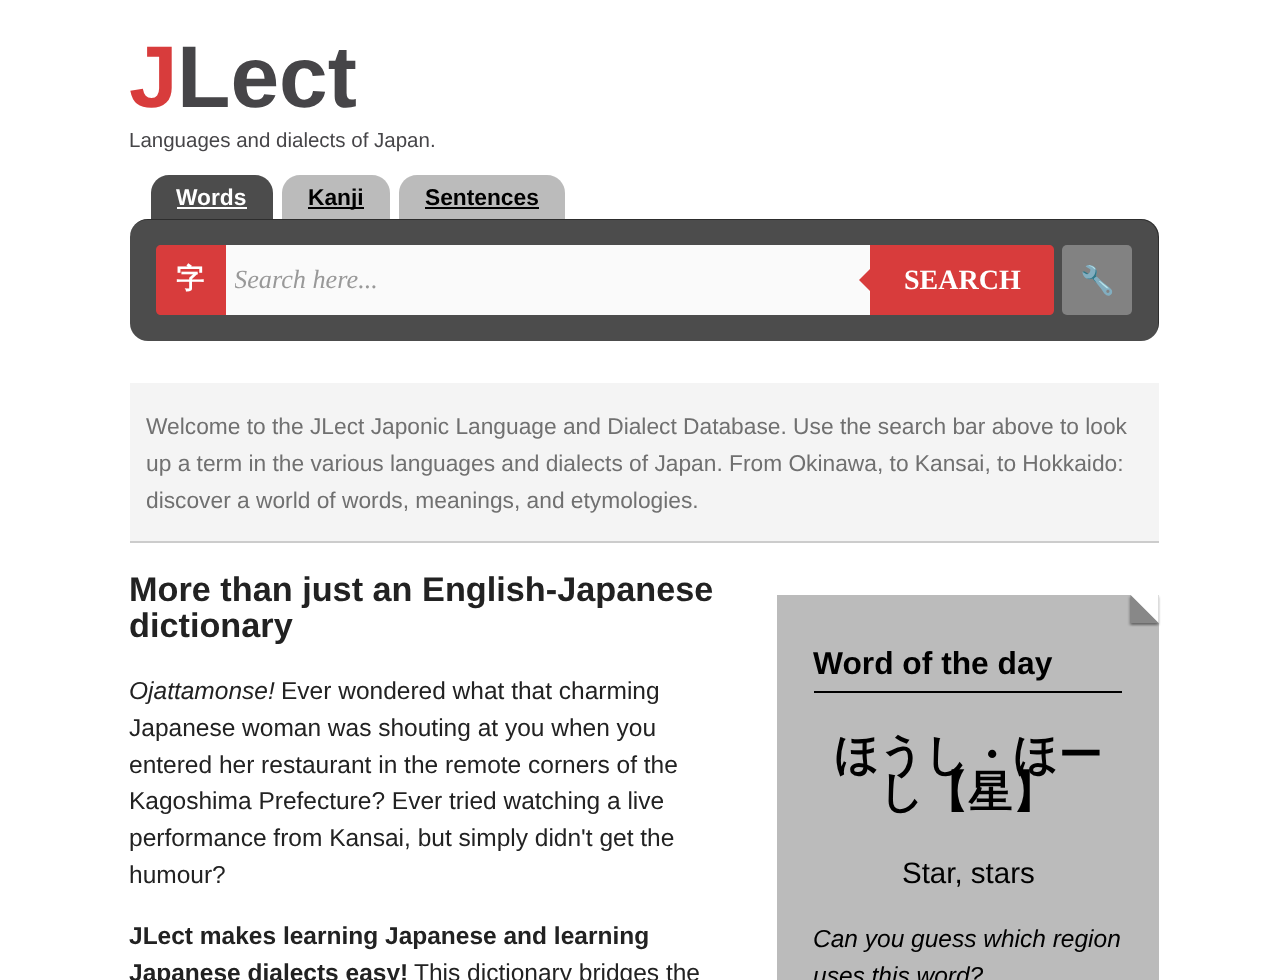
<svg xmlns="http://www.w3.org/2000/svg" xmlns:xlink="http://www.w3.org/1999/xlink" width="1288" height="980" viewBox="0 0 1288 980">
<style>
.cls-1{font:bold 87.5px Liberation Sans;fill:#d83c3c}
.cls-2{font:bold 87.5px Liberation Sans;fill:#464548}
.cls-3{font:20.5px Liberation Sans;fill:#464548}
.cls-4{font:bold 22.75px Liberation Sans;fill:#ffffff}
.cls-5{font:bold 22.75px Liberation Sans;fill:#000000}
.cls-6{font:bold 28px WenQuanYi Zen Hei;fill:#ffffff}
.cls-7{font:italic 26.25px Liberation Serif;fill:#999999}
.cls-8{font:bold 28px Liberation Serif;fill:#ffffff}
.cls-9{font:bold 28px Noto Color Emoji;fill:#ffffff}
.cls-10{font:22.75px Liberation Sans;fill:#707070}
.cls-11{font:bold 34.25px Liberation Sans;fill:#222222}
.cls-12{font:italic 24.5px Liberation Sans;fill:#222222}
.cls-13{font:24.5px Liberation Sans;fill:#222222}
.cls-14{font:bold 24.5px Liberation Sans;fill:#222222}
.cls-15{font:bold 31.75px Liberation Sans;fill:#000000}
.cls-16{font:bold 44px WenQuanYi Zen Hei;fill:#000000}
.cls-17{font:29.5px Liberation Sans;fill:#000000}
.cls-18{font:italic 24.5px Liberation Sans;fill:#000000}
</style>
<defs>
<clipPath id="clip1"><path d="M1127 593H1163V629H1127ZM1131 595H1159V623H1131Z" clip-rule="evenodd"/></clipPath>
<clipPath id="clip2"><rect x="235" y="266" width="626" height="30"/></clipPath>
</defs>
<rect width="100%" height="100%" fill="#ffffff"/>
<path fill="#4c4c4c" d="M169 175H255C265 175 273 183 273 193V219H151V193C151 183 159 175 169 175Z"/>
<rect fill="#ffffff" x="177" y="207" width="70" height="2"/>
<path fill="#bbbbbb" d="M300 175H372C382 175 390 183 390 193V219H282V193C282 183 290 175 300 175Z"/>
<rect fill="#000000" x="308" y="207" width="56" height="2"/>
<path fill="#bbbbbb" d="M417 175H547C557 175 565 183 565 193V219H399V193C399 183 407 175 417 175Z"/>
<rect fill="#000000" x="425" y="207" width="114" height="2"/>
<rect fill="#4c4c4c" x="130" y="219" width="1029" height="122" rx="18"/>
<path fill="#000000" fill-opacity="0.4" d="M147 220H1141C1151 220 1158 228 1158 238V326L1157 330C1158 328 1159 326 1159 323V237C1159 227 1151 219 1141 219H148C138 219 130 227 130 237V238C130 228 137 220 147 220Z"/>
<path fill="#d83c3c" d="M161 245H226V315H161C158 315 156 313 156 310V250C156 247 158 245 161 245Z"/>
<rect fill="#fafafa" x="226" y="245" width="644" height="70"/>
<path fill="#d83c3c" d="M870 245H1049C1052 245 1054 247 1054 250V310C1054 313 1052 315 1049 315H870Z"/>
<path fill="#d83c3c" d="M873 266V294L859 280Z"/>
<rect fill="#828282" x="1062" y="245" width="70" height="70" rx="5"/>
<rect fill="#f4f4f4" x="130" y="383" width="1029" height="158"/>
<rect fill="#cccccc" x="130" y="541" width="1029" height="2"/>
<rect fill="#bbbbbb" x="777" y="595" width="382" height="385"/>
<rect fill="#000000" fill-opacity="0.2" filter="blur(1px)" x="1129" y="597" width="28" height="28"/>
<g clip-path="url(#clip1)">
<rect fill="#000000" fill-opacity="0.3" filter="blur(1px)" x="1131" y="597" width="28" height="28"/>
</g>
<path fill="#ffffff" d="M1158.5 595V623L1130.5 595Z"/>
<path fill="#888888" d="M1158.5 623H1130.5V595Z"/>
<rect fill="#000000" x="814" y="691" width="308" height="2"/>
<text class="cls-1" x="129" y="107">J</text>
<text class="cls-2" x="177" y="107">Lect</text>
<text class="cls-3" x="129" y="147">Languages and dialects of Japan.</text>
<text class="cls-4" x="176" y="205">Words</text>
<text class="cls-5" x="308" y="205">Kanji</text>
<text class="cls-5" x="425" y="205">Sentences</text>
<text class="cls-6" x="176" y="288">字</text>
<g clip-path="url(#clip2)">
<text class="cls-7" x="234" y="288">Search here...</text>
</g>
<text class="cls-8" x="904" y="289">SEARCH</text>
<text class="cls-9" x="1080" y="290">🔧</text>
<text class="cls-10"><tspan x="146" y="434">Welcome to the JLect Japonic Language and Dialect Database. Use the search bar above to look</tspan><tspan x="146" y="471">up a term in the various languages and dialects of Japan. From Okinawa, to Kansai, to Hokkaido:</tspan><tspan x="146" y="508">discover a world of words, meanings, and etymologies.</tspan></text>
<text class="cls-11"><tspan x="129" y="601">More than just an English-Japanese</tspan><tspan x="129" y="637">dictionary</tspan></text>
<text class="cls-12" x="129" y="699">Ojattamonse!</text>
<text class="cls-13" x="281" y="699">Ever wondered what that charming</text>
<text class="cls-13"><tspan x="129" y="736">Japanese woman was shouting at you when you</tspan><tspan x="129" y="773">entered her restaurant in the remote corners of the</tspan><tspan x="129" y="809">Kagoshima Prefecture? Ever tried watching a live</tspan><tspan x="129" y="846">performance from Kansai, but simply didn't get the</tspan><tspan x="129" y="883">humour?</tspan></text>
<text class="cls-14"><tspan x="129" y="944">JLect makes learning Japanese and learning</tspan><tspan x="129" y="981">Japanese dialects easy!</tspan></text>
<text class="cls-13" x="414" y="981">This dictionary bridges the</text>
<text class="cls-15" x="813" y="674">Word of the day</text>
<text class="cls-16" x="834" y="770">ほうし・ほー</text>
<text class="cls-16" x="879" y="807">し【星】</text>
<text class="cls-17" x="902" y="883">Star, stars</text>
<text class="cls-18"><tspan x="813" y="947">Can you guess which region</tspan><tspan x="813" y="984">uses this word?</tspan></text>
</svg>
